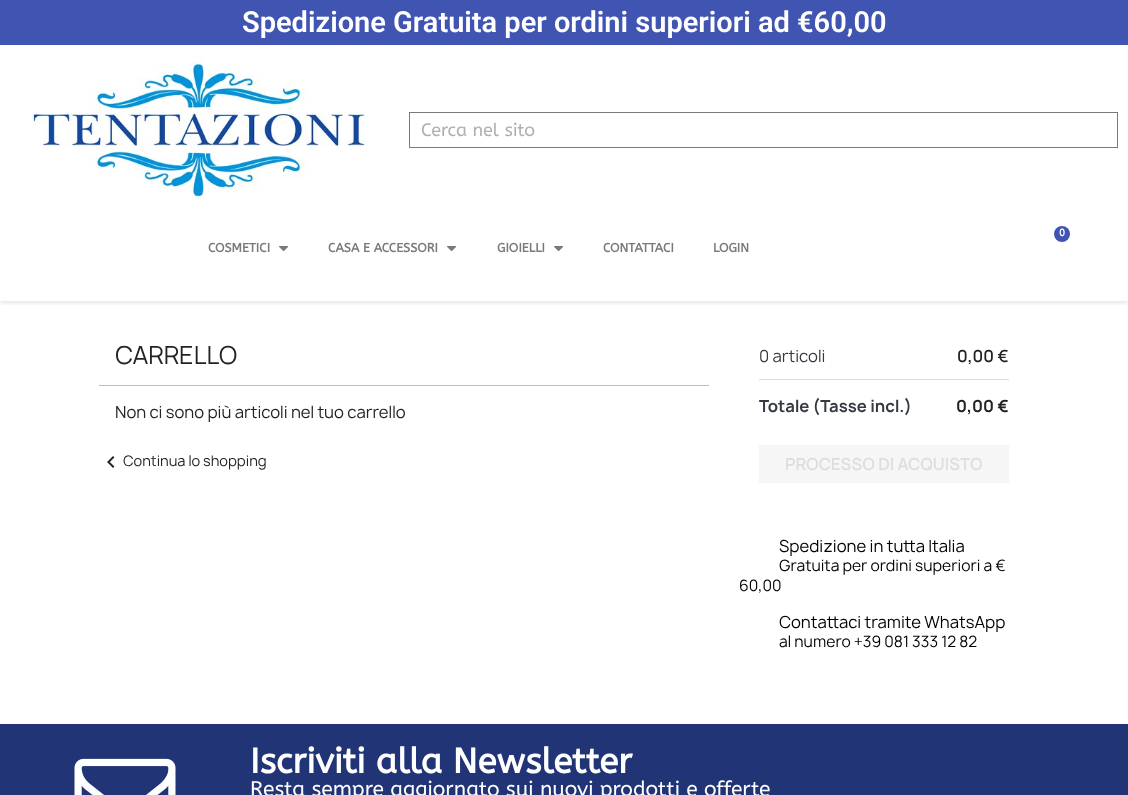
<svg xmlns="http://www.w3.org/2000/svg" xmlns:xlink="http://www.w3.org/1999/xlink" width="1128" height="795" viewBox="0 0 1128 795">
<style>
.cls-1{font:600 29px Roboto;fill:#ffffff}
.cls-2{font:18px ABeeZee;fill:#afafaf}
.cls-3{font:bold 10px ABeeZee;fill:#ffffff}
.cls-4{font:bold 12.5px ABeeZee;fill:#7a7a7a}
.cls-5{font:24px Manrope;fill:#232323}
.cls-6{font:16px Manrope;fill:#232323}
.cls-7{font:14px Manrope;fill:#232323}
.cls-8{font:16px Manrope;fill:#363a42}
.cls-9{font:600 16px Manrope;fill:#232323}
.cls-10{font:bold 16px Manrope;fill:#363a42}
.cls-11{font:bold 16px Manrope;fill:#232323}
.cls-12{font:600 16px Manrope;fill:#dddddd}
.cls-13{font:16px Manrope;fill:#000000}
.cls-14{font:15px Manrope;fill:#000000}
.cls-15{font:bold 35px ABeeZee;fill:#ffffff}
.cls-16{font:21px ABeeZee;fill:#ffffff}
</style>
<defs>
<clipPath id="clip1"><rect x="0" y="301" width="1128" height="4"/></clipPath>
</defs>
<rect width="100%" height="100%" fill="#ffffff"/>
<g clip-path="url(#clip1)">
<rect fill="#000000" fill-opacity="0.11" filter="blur(2.5px)" x="0" y="2" width="1128" height="301"/>
</g>
<rect fill="#4054b2" x="0" y="0" width="1128" height="45"/>
<image xlink:href="image0.png" x="32" y="55" width="336" height="146"/>
<rect fill="none" stroke="#7a7a7a" x="409.5" y="112.5" width="708" height="35"/>
<circle fill="#4054b2" cx="1062" cy="234" r="8"/>
<image xlink:href="image1.png" x="279" y="246" width="10" height="6"/>
<image xlink:href="image1.png" x="447" y="246" width="10" height="6"/>
<image xlink:href="image1.png" x="554" y="246" width="10" height="6"/>
<rect fill="#bfbfbf" x="99" y="385" width="610" height="1"/>
<image xlink:href="image2.png" x="107" y="456" width="8" height="12"/>
<rect fill="#dddddd" x="759" y="379" width="250" height="1"/>
<rect fill="#f6f6f6" x="759" y="445" width="250" height="38"/>
<rect fill="#213476" x="0" y="724" width="1128" height="71"/>
<image xlink:href="image3.png" x="74" y="758" width="102" height="37"/>
<text class="cls-1" x="242" y="32">Spedizione Gratuita per ordini superiori ad €60,00</text>
<text class="cls-2" x="421" y="136">Cerca nel sito</text>
<text class="cls-3" x="1059" y="236">0</text>
<text class="cls-4" x="208" y="252">COSMETICI</text>
<text class="cls-4" x="328" y="252">CASA E ACCESSORI</text>
<text class="cls-4" x="497" y="252">GIOIELLI</text>
<text class="cls-4" x="603" y="252">CONTATTACI</text>
<text class="cls-4" x="713" y="252">LOGIN</text>
<text class="cls-5" x="115" y="364">CARRELLO</text>
<text class="cls-6" x="115" y="418">Non ci sono più articoli nel tuo carrello</text>
<text class="cls-7" x="123" y="466">Continua lo shopping</text>
<text class="cls-8" x="759" y="362">0 articoli</text>
<text class="cls-9" x="957" y="362">0,00 €</text>
<text class="cls-10" x="759" y="412">Totale (Tasse incl.)</text>
<text class="cls-11" x="956" y="412">0,00 €</text>
<text class="cls-12" x="785" y="470">PROCESSO DI ACQUISTO</text>
<text class="cls-13" x="779" y="552">Spedizione in tutta Italia</text>
<text class="cls-14" x="779" y="571">Gratuita per ordini superiori a €</text>
<text class="cls-14" x="739" y="591">60,00</text>
<text class="cls-13" x="779" y="628">Contattaci tramite WhatsApp</text>
<text class="cls-14" x="779" y="647">al numero +39 081 333 12 82</text>
<text class="cls-15" x="250" y="773">Iscriviti alla Newsletter</text>
<text class="cls-16" x="250" y="796">Resta sempre aggiornato sui nuovi prodotti e offerte</text>
</svg>
